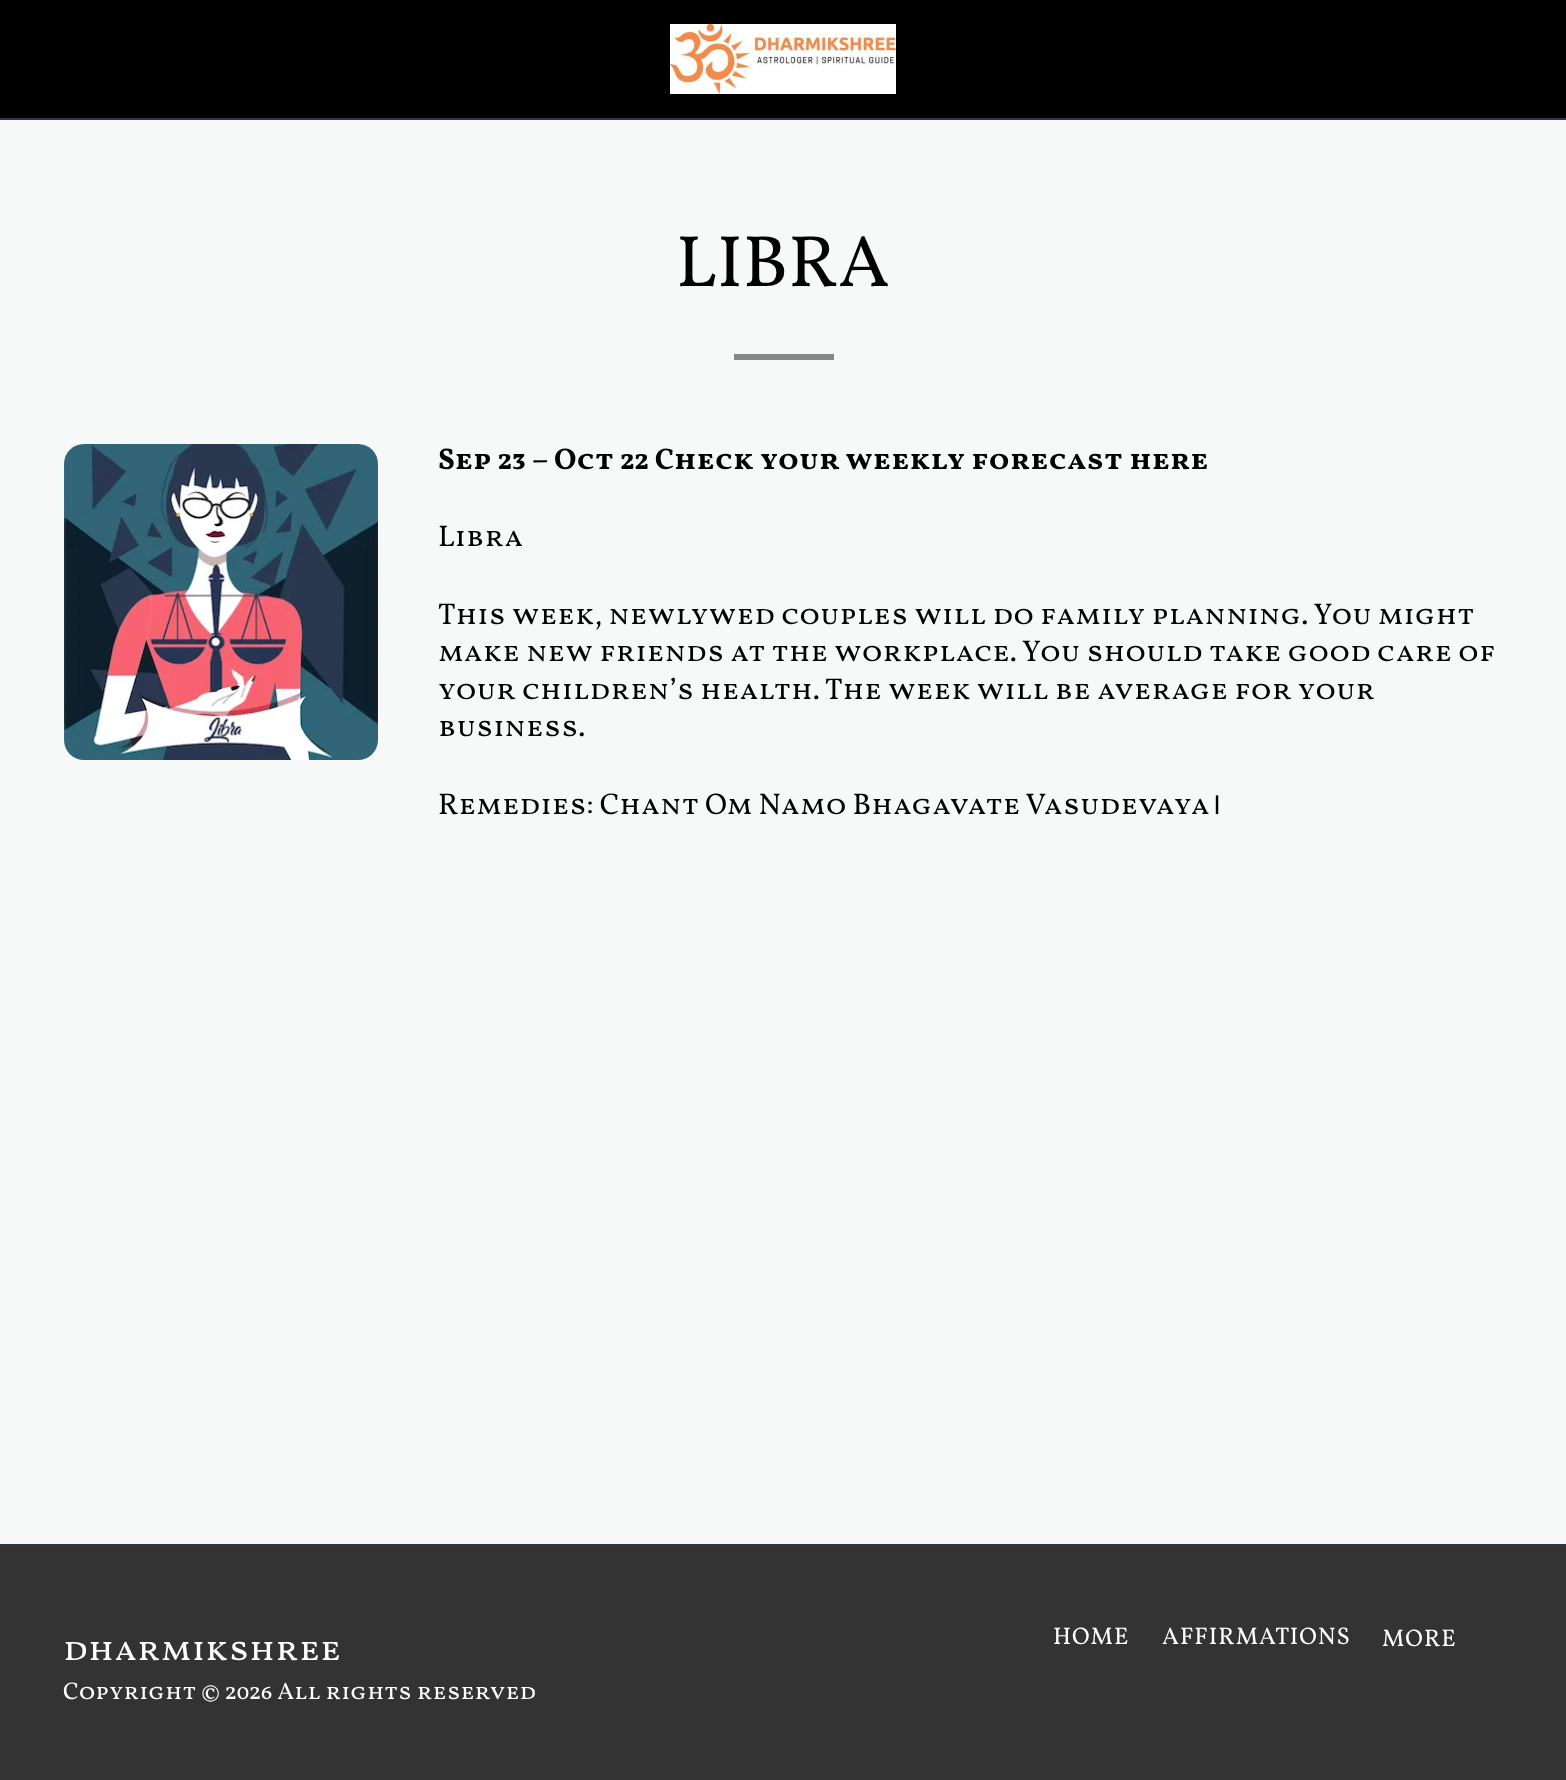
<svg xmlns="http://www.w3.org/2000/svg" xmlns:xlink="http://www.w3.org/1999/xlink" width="1566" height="1780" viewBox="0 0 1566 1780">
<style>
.cls-1{font:73px Vollkorn;fill:#000000}
.cls-2{font:bold 30px Vollkorn SC;fill:#000000}
.cls-3{font:30px Vollkorn SC;fill:#000000}
.cls-4{font:30px Noto Sans;fill:#000000}
.cls-5{font:24px Vollkorn SC;letter-spacing:1px;fill:#ffffff}
.cls-6{font:36px Vollkorn SC;fill:#ffffff}
.cls-7{font:24px Vollkorn SC;fill:#ffffff}
</style>
<rect width="100%" height="100%" fill="#f7f9f8"/>
<rect fill="#000000" x="0" y="0" width="1566" height="118"/>
<rect fill="#303841" x="0" y="118" width="1566" height="2"/>
<image xlink:href="image0.png" x="670" y="24" width="226" height="70"/>
<rect fill="#878789" x="734" y="354" width="100" height="6"/>
<image xlink:href="image1.png" x="64" y="444" width="314" height="316"/>
<rect fill="#333333" x="0" y="1546" width="1566" height="234"/>
<rect fill="#303841" x="0" y="1544" width="1566" height="2"/>
<text class="cls-1" x="676" y="286">LIBRA</text>
<text class="cls-2" x="438" y="469">Sep 23 – Oct 22 Check your weekly forecast here</text>
<text class="cls-3" x="438" y="546">Libra</text>
<text class="cls-3"><tspan x="438" y="624">This week, newlywed couples will do family planning. You might</tspan><tspan x="438" y="661">make new friends at the workplace. You should take good care of</tspan><tspan x="438" y="699">your children’s health. The week will be average for your</tspan><tspan x="438" y="736">business.</tspan></text>
<text class="cls-3" x="438" y="814">Remedies: Chant Om Namo Bhagavate Vasudevaya</text>
<text class="cls-4" x="1210" y="814">।</text>
<text class="cls-5" x="1053" y="1644">HOME</text>
<text class="cls-5" x="1162" y="1644">AFFIRMATIONS</text>
<text class="cls-5" x="1382" y="1646">MORE</text>
<text class="cls-6" x="63" y="1660">dharmikshree</text>
<text class="cls-7" x="63" y="1699">Copyright © 2026 All rights reserved</text>
</svg>
